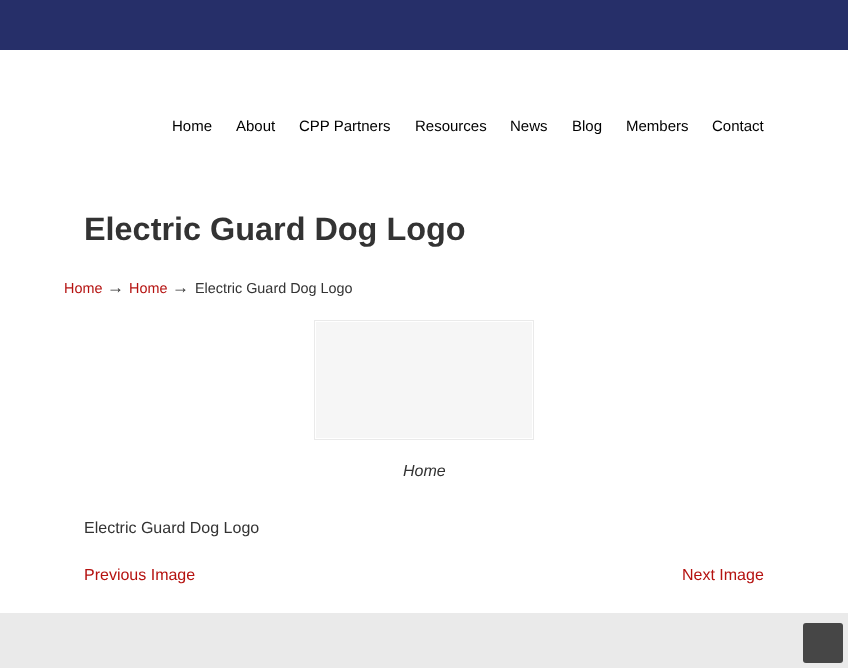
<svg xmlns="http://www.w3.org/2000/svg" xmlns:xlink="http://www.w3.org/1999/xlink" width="848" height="668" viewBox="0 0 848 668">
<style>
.cls-1{font:15px Liberation Sans;fill:#000000}
.cls-2{font:bold 32.4px Liberation Sans;fill:#333333}
.cls-3{font:14.4px Liberation Sans;fill:#b51210}
.cls-4{font:17px Liberation Sans;fill:#333333}
.cls-5{font:14.4px Liberation Sans;fill:#333333}
.cls-6{font:italic 16px Liberation Sans;fill:#333333}
.cls-7{font:16px Liberation Sans;fill:#333333}
.cls-8{font:16px Liberation Sans;fill:#b51210}
</style>
<rect width="100%" height="100%" fill="#ffffff"/>
<rect fill="#262f69" x="0" y="0" width="848" height="50"/>
<rect fill="#f6f6f6" x="316" y="322" width="216" height="116"/>
<rect fill="none" stroke="#eaeaea" x="314.5" y="320.5" width="219" height="119"/>
<rect fill="#eaeaea" x="0" y="613" width="848" height="55"/>
<rect fill="#464646" x="803" y="623" width="40" height="40" rx="3"/>
<text class="cls-1" x="172" y="131">Home</text>
<text class="cls-1" x="236" y="131">About</text>
<text class="cls-1" x="299" y="131">CPP Partners</text>
<text class="cls-1" x="415" y="131">Resources</text>
<text class="cls-1" x="510" y="131">News</text>
<text class="cls-1" x="572" y="131">Blog</text>
<text class="cls-1" x="626" y="131">Members</text>
<text class="cls-1" x="712" y="131">Contact</text>
<text class="cls-2" x="84" y="240">Electric Guard Dog Logo</text>
<text class="cls-3" x="64" y="293">Home</text>
<text class="cls-4" x="107" y="293">→</text>
<text class="cls-3" x="129" y="293">Home</text>
<text class="cls-4" x="172" y="293">→</text>
<text class="cls-5" x="195" y="293">Electric Guard Dog Logo</text>
<text class="cls-6" x="403" y="476">Home</text>
<text class="cls-7" x="84" y="533">Electric Guard Dog Logo</text>
<text class="cls-8" x="84" y="580">Previous Image</text>
<text class="cls-8" x="682" y="580">Next Image</text>
</svg>
